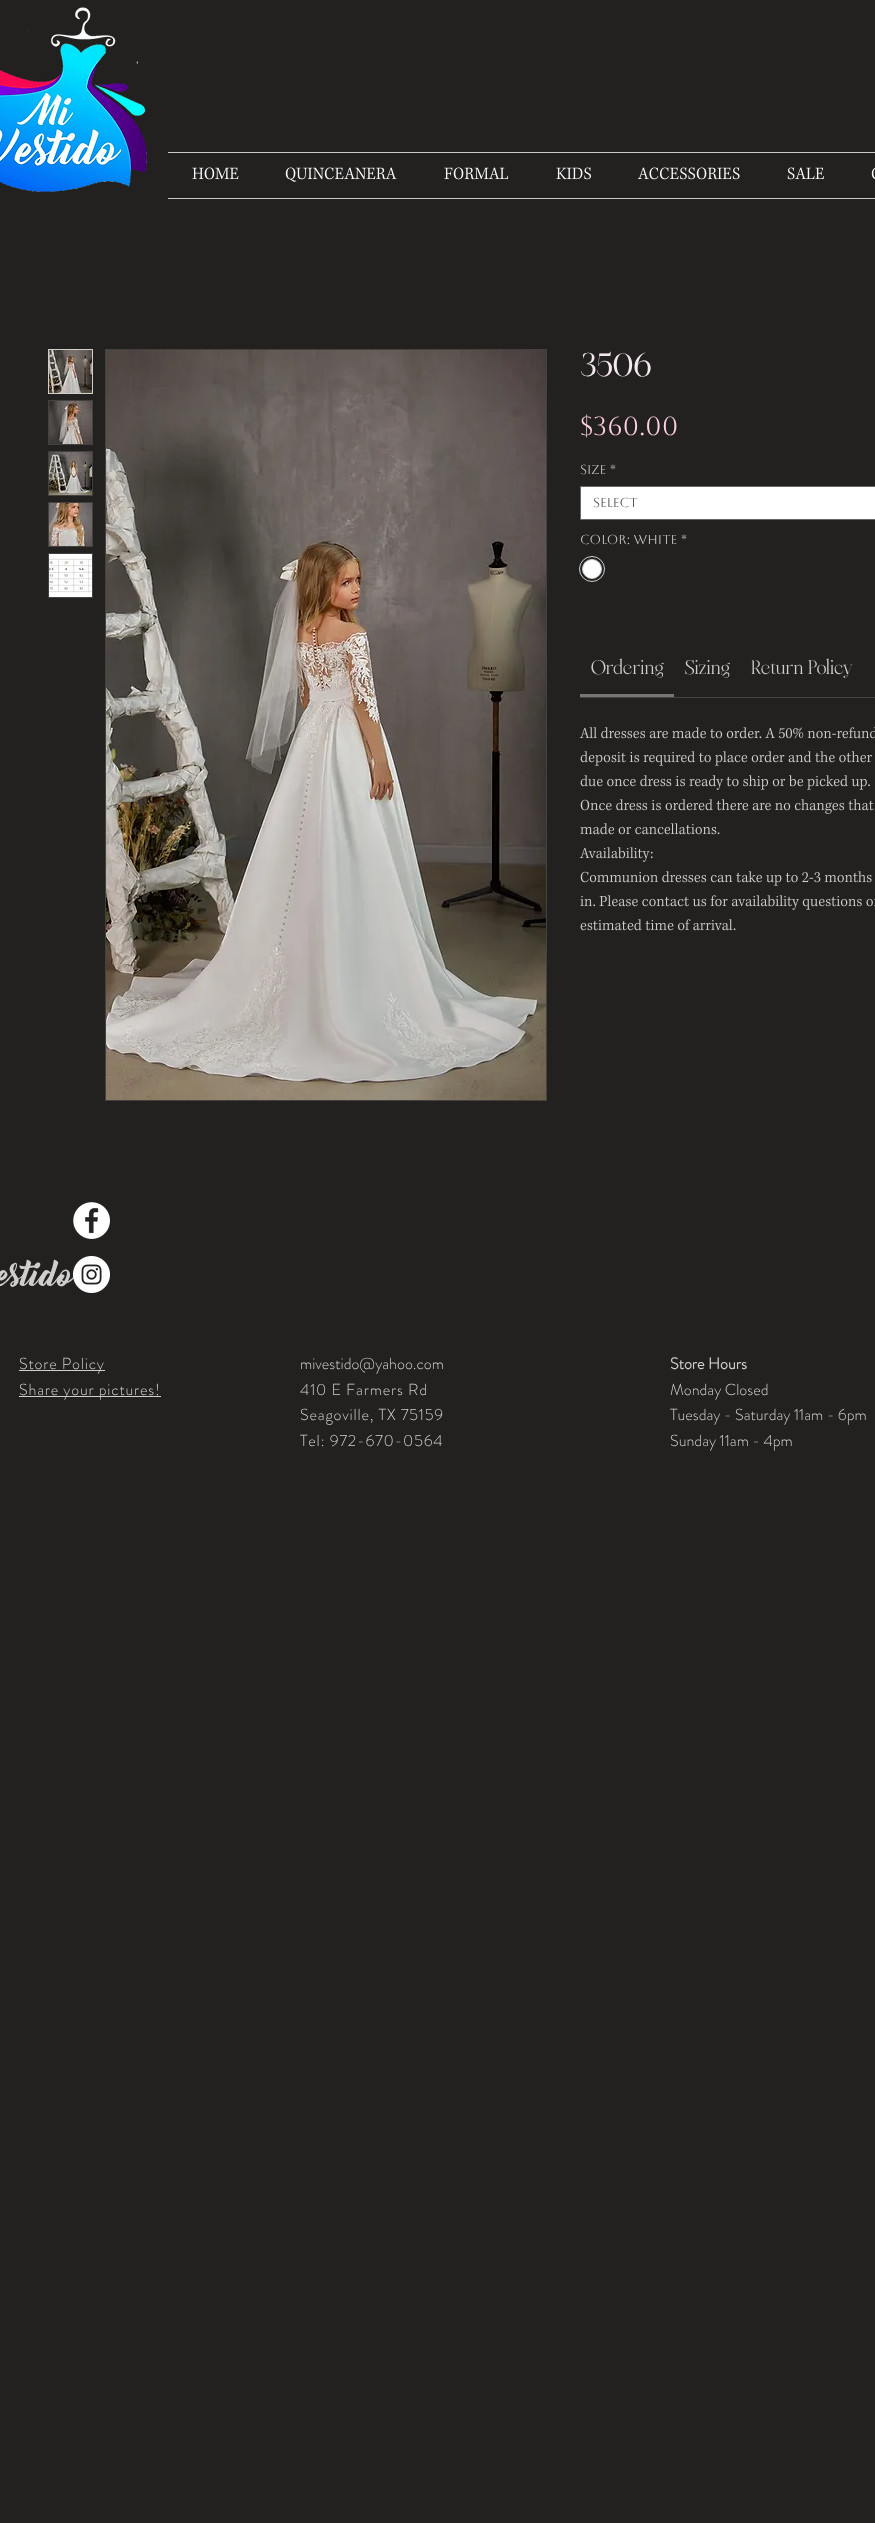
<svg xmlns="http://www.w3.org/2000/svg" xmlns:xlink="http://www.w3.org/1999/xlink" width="875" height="2523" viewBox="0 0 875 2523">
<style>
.cls-1{font:32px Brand;fill:#f5e9f0}
.cls-2{font:26px Aboreto;fill:#ffd1e2}
.cls-3{font:13px Aboreto;fill:#d0cfcd}
.cls-4{font:13px Aboreto;fill:#444444}
.cls-5{font:20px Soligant;fill:#d0cfcd}
.cls-6{font:32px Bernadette;fill:#d0cfcd}
.cls-7{font:300 16px 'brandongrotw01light';letter-spacing:0.8px;fill:#d0cfcd}
.cls-8{font:300 16px 'brandongrotw01light';fill:#d0cfcd}
.cls-9{font:bold 16px 'brandongrotw01light';fill:#d0cfcd}
</style>
<rect width="100%" height="100%" fill="#222120"/>
<image xlink:href="image0.png" x="0" y="7" width="147" height="185"/>
<rect fill="#cacaca" x="168" y="152" width="707" height="1"/>
<rect fill="#cacaca" x="168" y="198" width="707" height="1"/>
<image xlink:href="image1.png" x="192" y="167" width="47" height="13"/>
<image xlink:href="image2.png" x="285" y="167" width="112" height="15"/>
<image xlink:href="image3.png" x="444" y="167" width="65" height="13"/>
<image xlink:href="image4.png" x="556" y="167" width="35" height="13"/>
<image xlink:href="image5.png" x="637" y="167" width="103" height="13"/>
<image xlink:href="image6.png" x="787" y="167" width="37" height="13"/>
<image xlink:href="image7.png" x="871" y="168" width="4" height="11"/>
<rect fill="none" stroke="#d0cfcd" x="48.5" y="349.5" width="44" height="44"/>
<image xlink:href="image8.png" x="49" y="350" width="43" height="43"/>
<rect fill="#43423f" x="48" y="400" width="45" height="45"/>
<image xlink:href="image9.png" x="49" y="401" width="43" height="43"/>
<rect fill="#43423f" x="48" y="451" width="45" height="45"/>
<image xlink:href="image10.png" x="49" y="452" width="43" height="43"/>
<rect fill="#43423f" x="48" y="502" width="45" height="45"/>
<image xlink:href="image11.png" x="49" y="503" width="43" height="43"/>
<rect fill="#43423f" x="48" y="553" width="45" height="45"/>
<image xlink:href="image12.png" x="49" y="554" width="43" height="43"/>
<rect fill="none" stroke="#43423f" x="105.5" y="349.5" width="441" height="751"/>
<image xlink:href="image13.png" x="106" y="350" width="440" height="750"/>
<rect fill="#ffffff" stroke="#666666" x="580.5" y="486.5" width="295" height="33"/>
<circle fill="none" stroke="#d0cfcd" cx="592" cy="569" r="12.5"/>
<circle fill="#ffffff" stroke="#c9c9c9" cx="592" cy="569" r="9.5"/>
<rect fill="#454443" x="580" y="697" width="295" height="1"/>
<rect fill="#777674" x="580" y="694" width="94" height="3"/>
<image xlink:href="image14.png" x="579" y="727" width="296" height="12"/>
<image xlink:href="image15.png" x="580" y="751" width="292" height="15"/>
<image xlink:href="image16.png" x="580" y="775" width="290" height="15"/>
<image xlink:href="image17.png" x="580" y="799" width="294" height="15"/>
<image xlink:href="image18.png" x="580" y="823" width="140" height="12"/>
<image xlink:href="image19.png" x="579" y="847" width="74" height="15"/>
<image xlink:href="image20.png" x="580" y="871" width="292" height="15"/>
<image xlink:href="image21.png" x="580" y="895" width="295" height="15"/>
<image xlink:href="image22.png" x="580" y="919" width="156" height="12"/>
<image xlink:href="image23.png" x="73" y="1202" width="37" height="37"/>
<rect fill="#d0cfcd" x="19" y="1370" width="86" height="1"/>
<rect fill="#d0cfcd" x="19" y="1396" width="142" height="1"/>
<text class="cls-1" x="580" y="376">3506</text>
<text class="cls-2" x="580" y="435">$360.00</text>
<text class="cls-3" x="580" y="474">Size</text>
<text class="cls-3" x="610" y="474">*</text>
<text class="cls-4" x="593" y="507">Select</text>
<text class="cls-3" x="580" y="544">Color: White</text>
<text class="cls-3" x="681" y="544">*</text>
<text class="cls-5" x="591" y="674">Ordering</text>
<text class="cls-5" x="685" y="674">Sizing</text>
<text class="cls-5" x="751" y="674">Return Policy</text>
<text class="cls-6" x="-3" y="1286">estido</text>
<image xlink:href="image24.png" x="73" y="1256" width="37" height="37"/>
<text class="cls-7"><tspan x="19" y="1369">Store Policy</tspan><tspan x="19" y="1395">Share your pictures!</tspan></text>
<text class="cls-8" x="300" y="1369">mivestido@yahoo.com</text>
<text class="cls-7"><tspan x="300" y="1395">410 E Farmers Rd</tspan><tspan x="300" y="1420">Seagoville, TX 75159</tspan><tspan x="300" y="1446">Tel: 972-670-0564</tspan></text>
<text class="cls-9" x="670" y="1369">Store Hours</text>
<text class="cls-8"><tspan x="670" y="1395">Monday Closed</tspan><tspan x="670" y="1420">Tuesday - Saturday 11am - 6pm</tspan><tspan x="670" y="1446">Sunday 11am - 4pm</tspan></text>
</svg>
